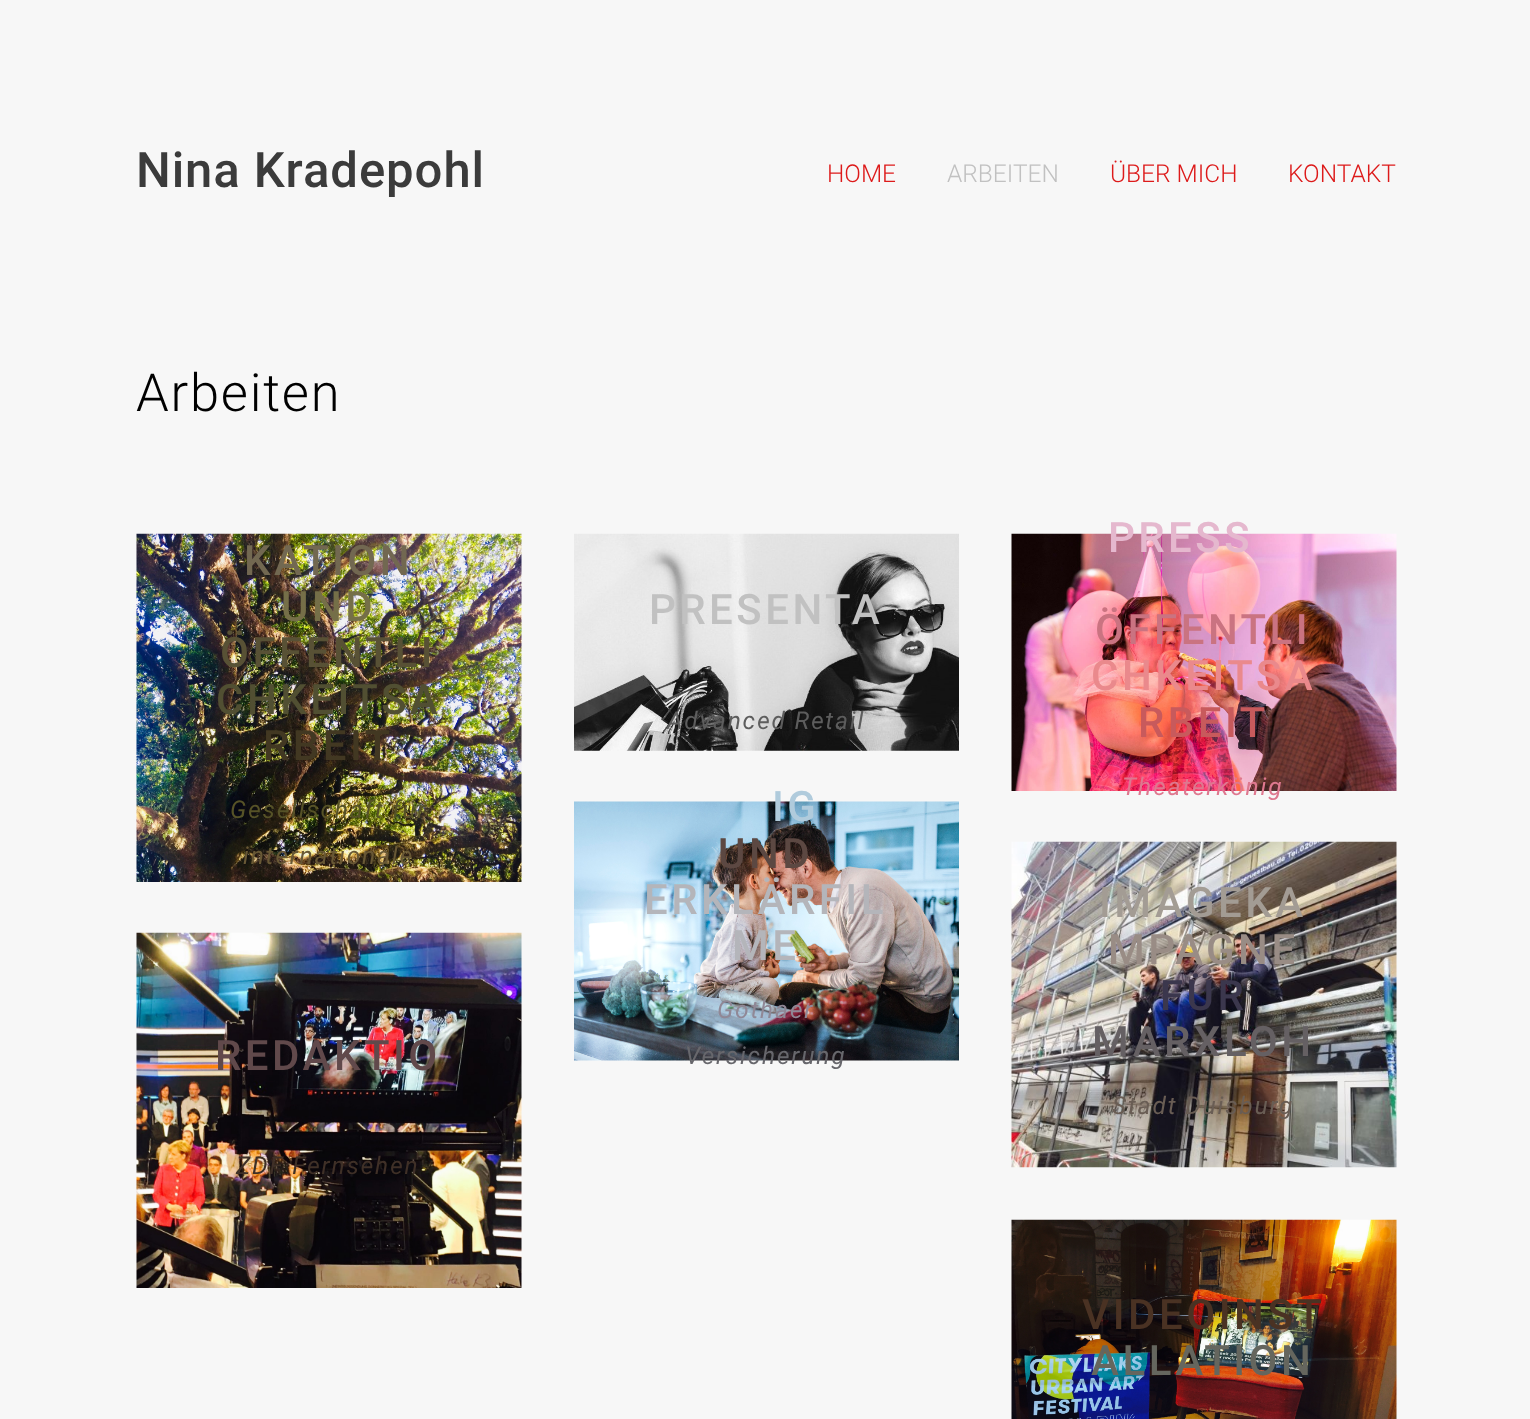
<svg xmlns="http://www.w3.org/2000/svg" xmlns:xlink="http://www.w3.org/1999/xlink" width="1530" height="1419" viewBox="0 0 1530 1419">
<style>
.cls-1{font:500 49px Roboto;letter-spacing:0.9px;fill:#3b3b3b}
.cls-2{font:300 24.5px Roboto;fill:#dd1a1a}
.cls-3{font:300 24.5px Roboto;fill:#c1c1c1}
.cls-4{font:300 52.5px Roboto;letter-spacing:1.75px;fill:#000000}
.cls-5{font:500 42px Roboto;letter-spacing:3.5px;fill:#726851}
.cls-6{font:500 42px Roboto;letter-spacing:3.5px;fill:#756f48}
.cls-7{font:500 42px Roboto;letter-spacing:3.5px;fill:#585135}
.cls-8{font:500 42px Roboto;letter-spacing:3.5px;fill:#514f32}
.cls-9{font:500 42px Roboto;letter-spacing:3.5px;fill:#423822}
.cls-10{font:italic 24.5px Roboto;letter-spacing:1.75px;fill:#565227}
.cls-11{font:italic 24.5px Roboto;letter-spacing:1.75px;fill:#685835}
.cls-12{font:500 42px Roboto;letter-spacing:3.5px;fill:#c1c1c1}
.cls-13{font:italic 24.5px Roboto;letter-spacing:1.75px;fill:#5d5d5d}
.cls-14{font:500 42px Roboto;letter-spacing:3.5px;fill:#e5b8ce}
.cls-15{font:500 42px Roboto;letter-spacing:3.5px;fill:#ca7381}
.cls-16{font:500 42px Roboto;letter-spacing:3.5px;fill:#ea898c}
.cls-17{font:500 42px Roboto;letter-spacing:3.5px;fill:#c85a5c}
.cls-18{font:italic 24.5px Roboto;letter-spacing:1.75px;fill:#de788f}
.cls-19{font:500 42px Roboto;letter-spacing:3.5px;fill:#61494b}
.cls-20{font:italic 24.5px Roboto;letter-spacing:1.75px;fill:#3f3027}
.cls-21{font:500 42px Roboto;letter-spacing:3.5px;fill:#b0cbdc}
.cls-22{font:500 42px Roboto;letter-spacing:3.5px;fill:#5c4842}
.cls-23{font:500 42px Roboto;letter-spacing:3.5px;fill:#b4b5ba}
.cls-24{font:italic 24.5px Roboto;letter-spacing:1.75px;fill:#908896}
.cls-25{font:italic 24.5px Roboto;letter-spacing:1.75px;fill:#67676c}
.cls-26{font:500 42px Roboto;letter-spacing:3.5px;fill:#a39c94}
.cls-27{font:500 42px Roboto;letter-spacing:3.5px;fill:#998c85}
.cls-28{font:500 42px Roboto;letter-spacing:3.5px;fill:#3b374d}
.cls-29{font:500 42px Roboto;letter-spacing:3.5px;fill:#656063}
.cls-30{font:italic 24.5px Roboto;letter-spacing:1.75px;fill:#695d54}
.cls-31{font:500 42px Roboto;letter-spacing:3.5px;fill:#4a3223}
.cls-32{font:500 42px Roboto;letter-spacing:3.5px;fill:#65665e}
</style>
<rect width="100%" height="100%" fill="#f7f7f7"/>
<image xlink:href="image0.png" x="136" y="533" width="386" height="349"/>
<image xlink:href="image1.png" x="574" y="533" width="385" height="218"/>
<image xlink:href="image2.png" x="1011" y="533" width="386" height="258"/>
<image xlink:href="image3.png" x="136" y="932" width="386" height="356"/>
<image xlink:href="image4.png" x="574" y="801" width="385" height="260"/>
<image xlink:href="image5.png" x="1011" y="841" width="386" height="327"/>
<image xlink:href="image6.png" x="1011" y="1219" width="386" height="200"/>
<text class="cls-1" x="136" y="187">Nina Kradepohl</text>
<text class="cls-2" x="827" y="182">HOME</text>
<text class="cls-3" x="947" y="182">ARBEITEN</text>
<text class="cls-2" x="1110" y="182">ÜBER MICH</text>
<text class="cls-2" x="1288" y="182">KONTAKT</text>
<text class="cls-4" x="136" y="411">Arbeiten</text>
<text class="cls-5" x="244" y="575">KATION</text>
<text class="cls-6" x="281" y="621">UND</text>
<text class="cls-7" x="220" y="667">ÖFFENTLI</text>
<text class="cls-8" x="216" y="714">CHKEITSA</text>
<text class="cls-9" x="263" y="760">RBEIT</text>
<text class="cls-10" x="230" y="818">Gesellschaft für</text>
<text class="cls-11" x="243" y="864">internationale</text>
<text class="cls-12" x="649" y="624">PRESENTA</text>
<text class="cls-13" x="667" y="729">Advanced Retail</text>
<text class="cls-14" x="1108" y="552">PRESS</text>
<text class="cls-15" x="1095" y="644">ÖFFENTLI</text>
<text class="cls-16" x="1091" y="690">CHKEITSA</text>
<text class="cls-17" x="1138" y="737">RBEIT</text>
<text class="cls-18" x="1122" y="795">Theaterkönig</text>
<text class="cls-19" x="215" y="1070">REDAKTIO</text>
<text class="cls-20" x="236" y="1174">ZDF Fernsehen</text>
<text class="cls-21" x="772" y="821">IG</text>
<text class="cls-22" x="718" y="868">UND</text>
<text class="cls-23" x="644" y="914">ERKLÄRFIL</text>
<text class="cls-23" x="732" y="960">ME</text>
<text class="cls-24" x="717" y="1018">Gothaer</text>
<text class="cls-25" x="685" y="1064">Versicherung</text>
<text class="cls-26" x="1099" y="917">IMAGEKA</text>
<text class="cls-27" x="1108" y="964">MPAGNE</text>
<text class="cls-28" x="1160" y="1010">FÜR</text>
<text class="cls-29" x="1092" y="1056">MARXLOH</text>
<text class="cls-30" x="1112" y="1114">Stadt Duisburg</text>
<text class="cls-31" x="1082" y="1329">VIDEOINST</text>
<text class="cls-32" x="1091" y="1375">ALLATION</text>
</svg>
